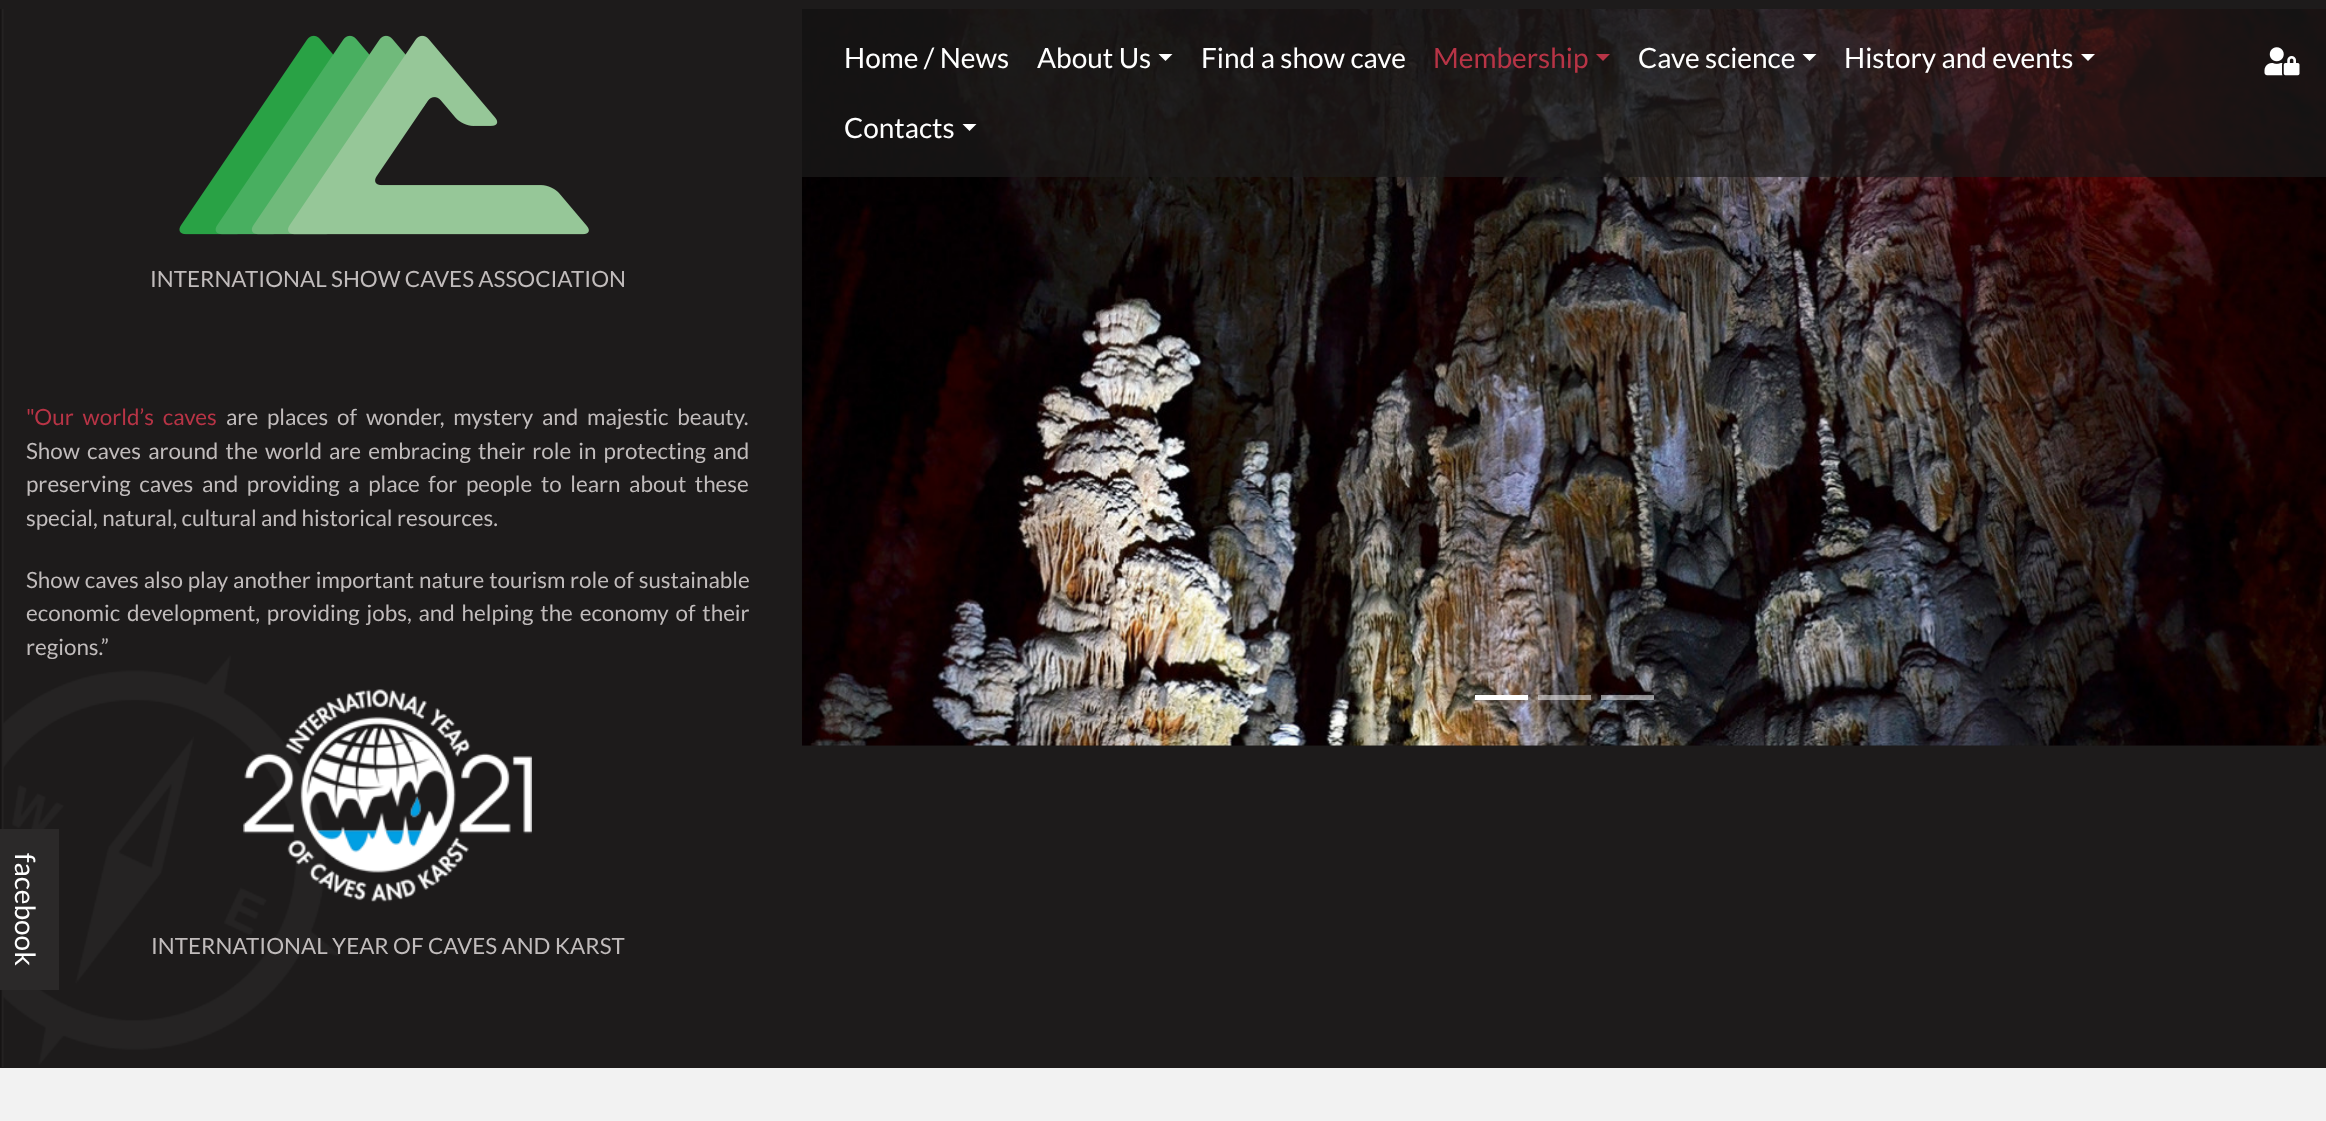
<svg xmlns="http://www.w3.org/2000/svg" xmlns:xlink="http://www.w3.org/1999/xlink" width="2326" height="1121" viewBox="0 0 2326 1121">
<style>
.cls-1{font:28px Lato;fill:#ffffff}
.cls-2{font:28px Lato;fill:#b83446}
.cls-3{font:22.4px Lato;fill:#c1bcbc}
.cls-4{font:22.4px Lato;fill:#b83446}
</style>
<rect width="100%" height="100%" fill="#f2f2f2"/>
<rect fill="#1d1b1b" x="0" y="0" width="2326" height="1068"/>
<image xlink:href="image2.png" x="0" y="9" width="339" height="1058"/>
<rect fill="#2b2929" x="0" y="829" width="59" height="161"/>
<image xlink:href="image0.png" x="802" y="9" width="1524" height="737"/>
<rect fill="#ffffff" x="1475" y="695" width="53" height="5"/>
<rect fill="#ffffff" fill-opacity="0.5" x="1538" y="695" width="53" height="5"/>
<rect fill="#ffffff" fill-opacity="0.5" x="1601" y="695" width="53" height="5"/>
<rect fill="#1d1b1b" fill-opacity="0.7" x="802" y="9" width="1524" height="168"/>
<path fill="#ffffff" d="M1158.5 54H1172.5L1165.5 61Z"/>
<path fill="#b83446" d="M1596 54H1610L1603 61Z"/>
<path fill="#ffffff" d="M1802.5 54H1816.5L1809.5 61Z"/>
<path fill="#ffffff" d="M2081 54H2095L2088 61Z"/>
<path fill="#ffffff" d="M962.5 124H976.5L969.5 131Z"/>
<image xlink:href="image1.png" x="2264" y="47" width="36" height="29"/>
<image xlink:href="image3.png" x="179" y="35" width="410" height="200"/>
<image xlink:href="image4.png" x="243" y="689" width="289" height="213"/>
<text class="cls-1" x="15" y="853" transform="rotate(90 15 853)">facebook</text>
<text class="cls-1" x="844" y="68">Home / News</text>
<text class="cls-1" x="1037" y="68">About Us</text>
<text class="cls-1" x="1201" y="68">Find a show cave</text>
<text class="cls-2" x="1433" y="68">Membership</text>
<text class="cls-1" x="1638" y="68">Cave science</text>
<text class="cls-1" x="1844" y="68">History and events</text>
<text class="cls-1" x="844" y="138">Contacts</text>
<text class="cls-3" x="150" y="287">INTERNATIONAL SHOW CAVES ASSOCIATION</text>
<text class="cls-4" x="26" y="425" word-spacing="4.5">"Our world’s caves</text>
<text class="cls-3" x="226" y="425" word-spacing="4.5">are places of wonder, mystery and majestic beauty.</text>
<text class="cls-3"><tspan x="26" y="459" word-spacing="2.75">Show caves around the world are embracing their role in protecting and</tspan><tspan x="26" y="492" word-spacing="4.25">preserving caves and providing a place for people to learn about these</tspan><tspan x="26" y="526">special, natural, cultural and historical resources.</tspan></text>
<text class="cls-3"><tspan x="26" y="588" word-spacing="0.5">Show caves also play another important nature tourism role of sustainable</tspan><tspan x="26" y="621" word-spacing="2.5">economic development, providing jobs, and helping the economy of their</tspan><tspan x="26" y="655">regions.”</tspan></text>
<text class="cls-3" x="151" y="954">INTERNATIONAL YEAR OF CAVES AND KARST</text>
</svg>
